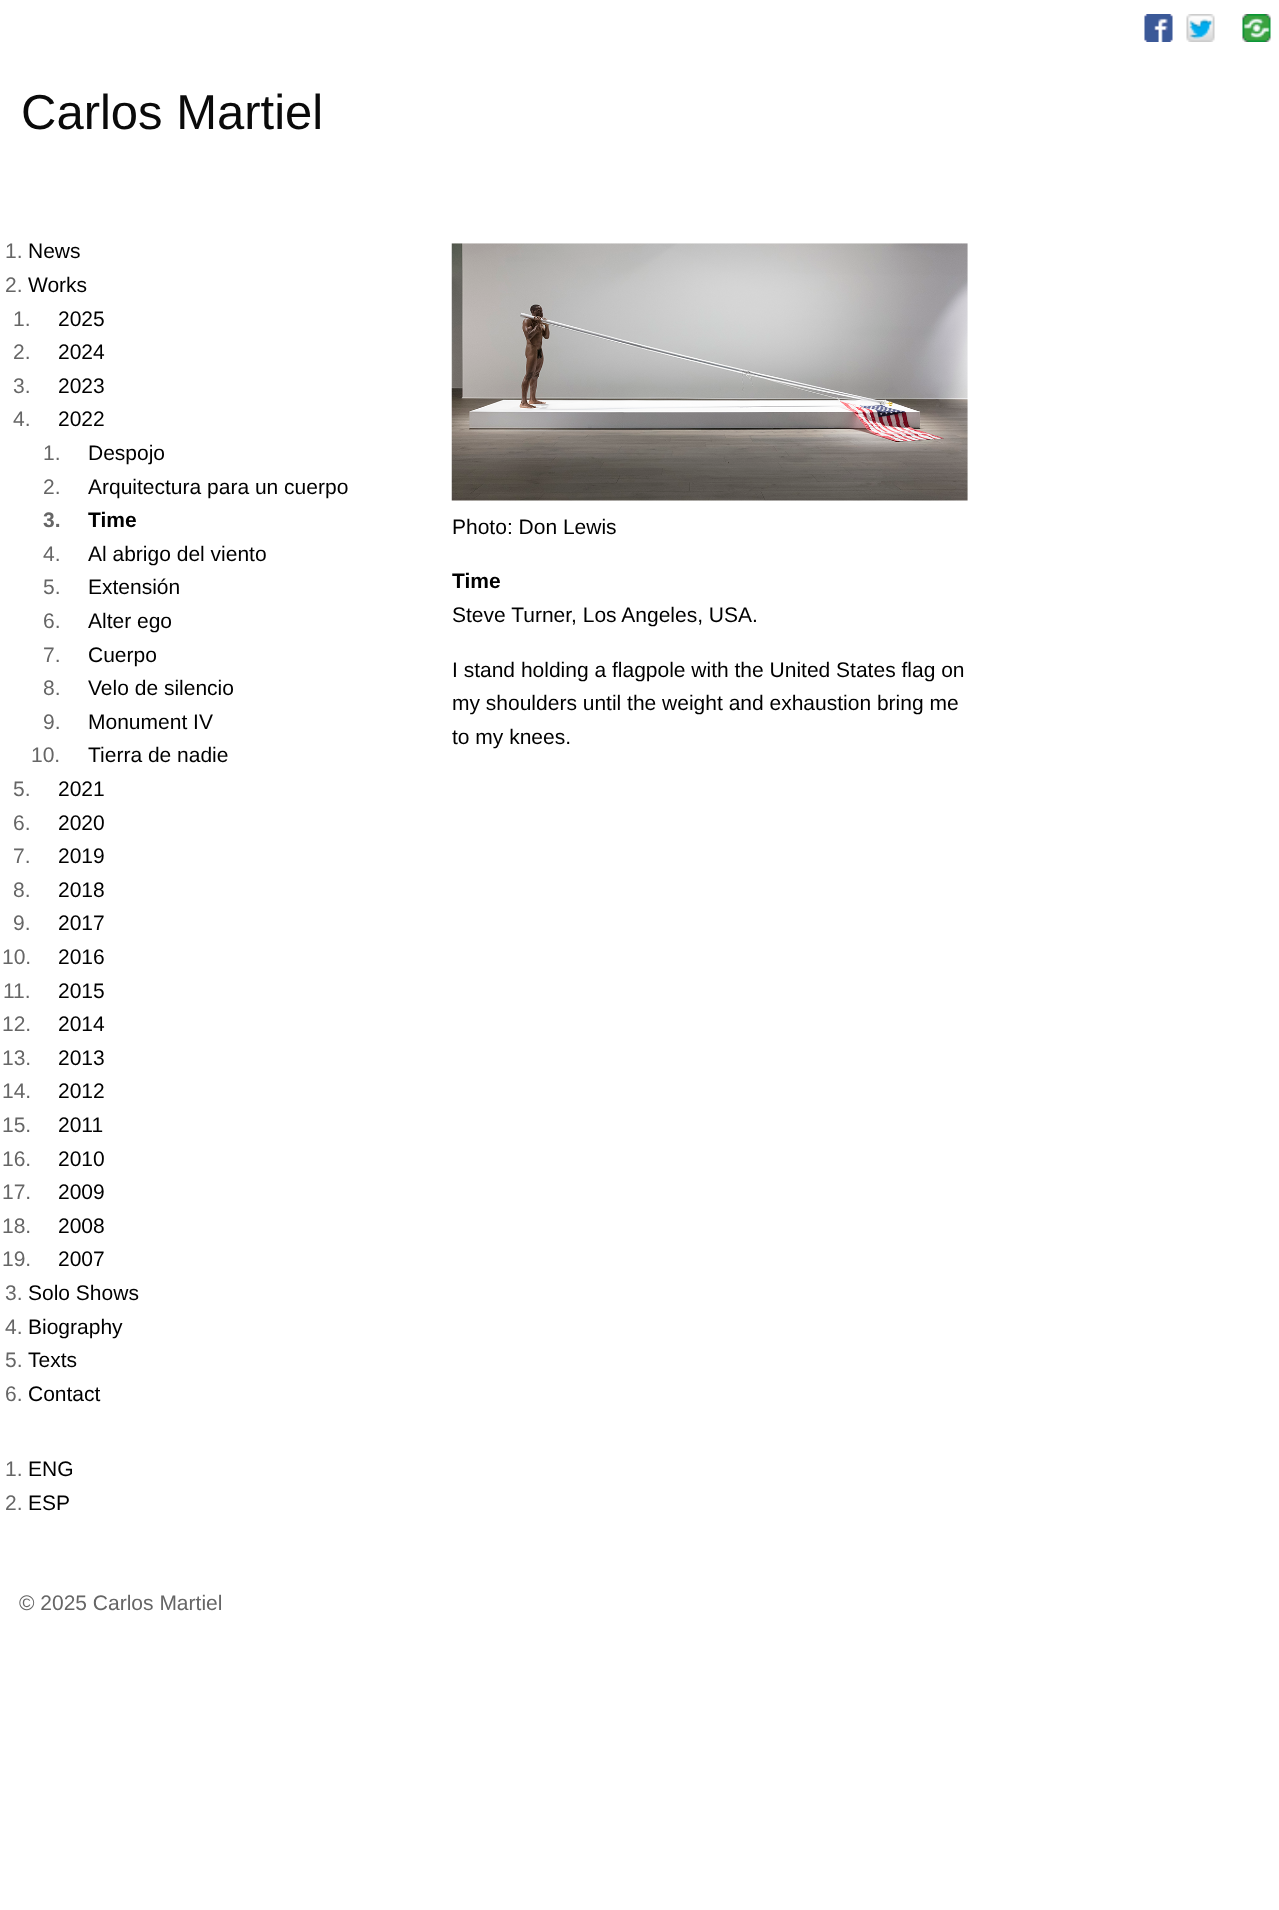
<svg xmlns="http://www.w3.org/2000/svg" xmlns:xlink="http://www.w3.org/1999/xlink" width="1279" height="1910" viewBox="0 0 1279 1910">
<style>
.cls-1{font:49px Liberation Sans;fill:#0a0a0a}
.cls-2{font:21px Liberation Sans;fill:#666666}
.cls-3{font:21px Liberation Sans;fill:#000000}
.cls-4{font:bold 21px Liberation Sans;fill:#666666}
.cls-5{font:bold 21px Liberation Sans;fill:#000000}
</style>
<defs>
<clipPath id="clip1"><rect x="452" y="243" width="516" height="520"/></clipPath>
</defs>
<rect width="100%" height="100%" fill="#ffffff"/>
<image xlink:href="image0.png" x="1144" y="14" width="29" height="28"/>
<image xlink:href="image1.png" x="1186" y="14" width="29" height="28"/>
<image xlink:href="image2.png" x="1242" y="14" width="29" height="28"/>
<image xlink:href="image3.png" x="451" y="243" width="517" height="258"/>
<text class="cls-1" x="21" y="129">Carlos Martiel</text>
<text class="cls-2" x="5" y="258">1.</text>
<text class="cls-3" x="28" y="258">News</text>
<text class="cls-2" x="5" y="292">2.</text>
<text class="cls-3" x="28" y="292">Works</text>
<text class="cls-2" x="13" y="326">1.</text>
<text class="cls-3" x="58" y="326">2025</text>
<text class="cls-2" x="13" y="359">2.</text>
<text class="cls-3" x="58" y="359">2024</text>
<text class="cls-2" x="13" y="393">3.</text>
<text class="cls-3" x="58" y="393">2023</text>
<text class="cls-2" x="13" y="426">4.</text>
<text class="cls-3" x="58" y="426">2022</text>
<text class="cls-2" x="43" y="460">1.</text>
<text class="cls-3" x="88" y="460">Despojo</text>
<text class="cls-2" x="43" y="494">2.</text>
<text class="cls-3" x="88" y="494">Arquitectura para un cuerpo</text>
<text class="cls-4" x="43" y="527">3.</text>
<text class="cls-5" x="88" y="527">Time</text>
<text class="cls-2" x="43" y="561">4.</text>
<text class="cls-3" x="88" y="561">Al abrigo del viento</text>
<text class="cls-2" x="43" y="594">5.</text>
<text class="cls-3" x="88" y="594">Extensión</text>
<text class="cls-2" x="43" y="628">6.</text>
<text class="cls-3" x="88" y="628">Alter ego</text>
<text class="cls-2" x="43" y="662">7.</text>
<text class="cls-3" x="88" y="662">Cuerpo</text>
<text class="cls-2" x="43" y="695">8.</text>
<text class="cls-3" x="88" y="695">Velo de silencio</text>
<text class="cls-2" x="43" y="729">9.</text>
<text class="cls-3" x="88" y="729">Monument IV</text>
<text class="cls-2" x="31" y="762">10.</text>
<text class="cls-3" x="88" y="762">Tierra de nadie</text>
<text class="cls-2" x="13" y="796">5.</text>
<text class="cls-3" x="58" y="796">2021</text>
<text class="cls-2" x="13" y="830">6.</text>
<text class="cls-3" x="58" y="830">2020</text>
<text class="cls-2" x="13" y="863">7.</text>
<text class="cls-3" x="58" y="863">2019</text>
<text class="cls-2" x="13" y="897">8.</text>
<text class="cls-3" x="58" y="897">2018</text>
<text class="cls-2" x="13" y="930">9.</text>
<text class="cls-3" x="58" y="930">2017</text>
<text class="cls-2" x="2" y="964">10.</text>
<text class="cls-3" x="58" y="964">2016</text>
<text class="cls-2" x="3" y="998">11.</text>
<text class="cls-3" x="58" y="998">2015</text>
<text class="cls-2" x="2" y="1031">12.</text>
<text class="cls-3" x="58" y="1031">2014</text>
<text class="cls-2" x="2" y="1065">13.</text>
<text class="cls-3" x="58" y="1065">2013</text>
<text class="cls-2" x="2" y="1098">14.</text>
<text class="cls-3" x="58" y="1098">2012</text>
<text class="cls-2" x="2" y="1132">15.</text>
<text class="cls-3" x="58" y="1132">2011</text>
<text class="cls-2" x="2" y="1166">16.</text>
<text class="cls-3" x="58" y="1166">2010</text>
<text class="cls-2" x="2" y="1199">17.</text>
<text class="cls-3" x="58" y="1199">2009</text>
<text class="cls-2" x="2" y="1233">18.</text>
<text class="cls-3" x="58" y="1233">2008</text>
<text class="cls-2" x="2" y="1266">19.</text>
<text class="cls-3" x="58" y="1266">2007</text>
<text class="cls-2" x="5" y="1300">3.</text>
<text class="cls-3" x="28" y="1300">Solo Shows</text>
<text class="cls-2" x="5" y="1334">4.</text>
<text class="cls-3" x="28" y="1334">Biography</text>
<text class="cls-2" x="5" y="1367">5.</text>
<text class="cls-3" x="28" y="1367">Texts</text>
<text class="cls-2" x="5" y="1401">6.</text>
<text class="cls-3" x="28" y="1401">Contact</text>
<text class="cls-2" x="5" y="1476">1.</text>
<text class="cls-3" x="28" y="1476">ENG</text>
<text class="cls-2" x="5" y="1510">2.</text>
<text class="cls-3" x="28" y="1510">ESP</text>
<text class="cls-2" x="19" y="1610">© 2025 Carlos Martiel</text>
<text class="cls-3" x="452" y="534">Photo: Don Lewis</text>
<g clip-path="url(#clip1)">
<text class="cls-5" x="452" y="588">Time</text>
</g>
<text class="cls-3" x="452" y="622">Steve Turner, Los Angeles, USA.</text>
<text class="cls-3"><tspan x="452" y="677">I stand holding a flagpole with the United States flag on</tspan><tspan x="452" y="710">my shoulders until the weight and exhaustion bring me</tspan><tspan x="452" y="744">to my knees.</tspan></text>
</svg>
